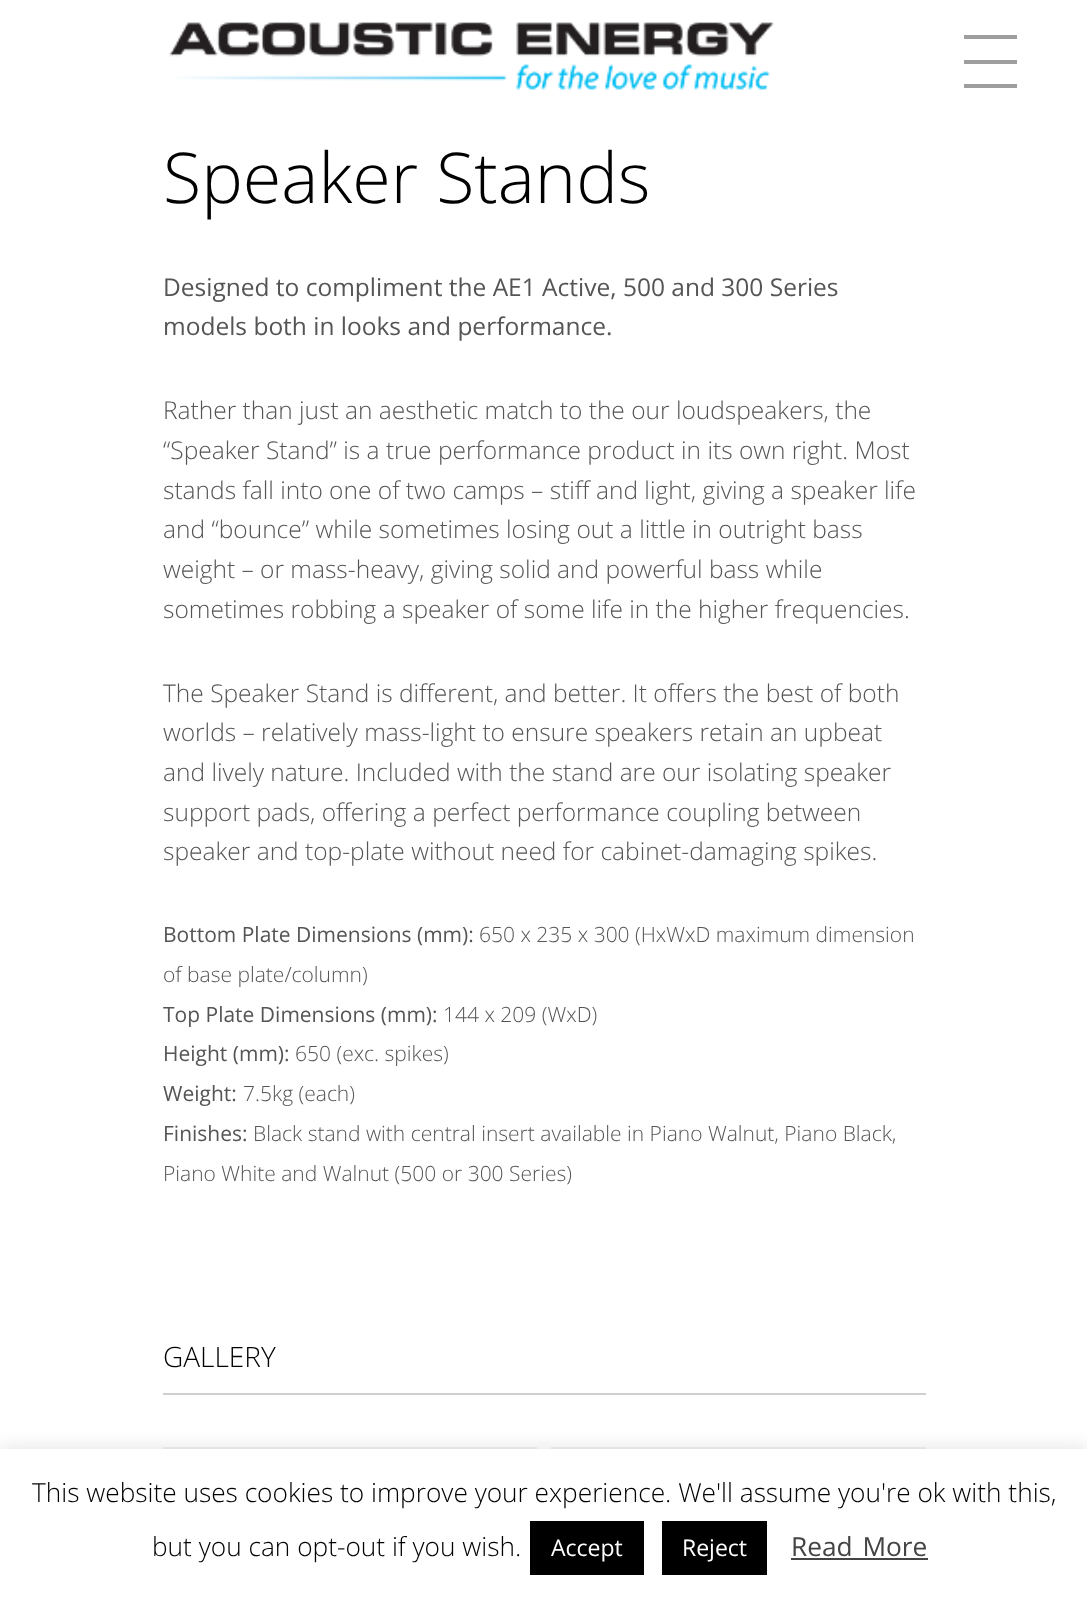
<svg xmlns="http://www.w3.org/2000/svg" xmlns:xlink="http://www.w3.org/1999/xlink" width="1087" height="1604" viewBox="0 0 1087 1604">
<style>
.cls-1{font:300 70px Open Sans;fill:#000000}
.cls-2{font:24.5px Open Sans;fill:#555555}
.cls-3{font:300 24.5px Open Sans;fill:#555555}
.cls-4{font:21px Open Sans;fill:#555555}
.cls-5{font:300 21px Open Sans;fill:#555555}
.cls-6{font:300 28px Open Sans;fill:#000000}
.cls-7{font:300 26.25px Open Sans;fill:#000000}
.cls-8{font:23px Open Sans;fill:#ffffff}
.cls-9{font:26.25px Open Sans;fill:#444444}
</style>
<rect width="100%" height="100%" fill="#ffffff"/>
<image xlink:href="image0.png" x="169" y="22" width="605" height="68"/>
<rect fill="#9e9e9e" x="964" y="35" width="53" height="4"/>
<rect fill="#9e9e9e" x="964" y="84" width="53" height="4"/>
<rect fill="#9e9e9e" x="964" y="60" width="53" height="4"/>
<rect fill="#cfcfcf" x="163" y="1393" width="763" height="2"/>
<rect fill="none" stroke="#f0f0f0" stroke-width="2" x="164" y="1448" width="372" height="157"/>
<rect fill="none" stroke="#f0f0f0" stroke-width="2" x="552" y="1448" width="373" height="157"/>
<rect fill="#acabab" fill-opacity="0.3" filter="blur(9px)" x="0" y="1447" width="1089" height="156"/>
<rect fill="#ffffff" x="0" y="1449" width="1087" height="155"/>
<rect fill="#000000" x="530" y="1521" width="114" height="54"/>
<rect fill="#000000" x="662" y="1521" width="105" height="54"/>
<rect fill="#444444" x="791" y="1558" width="137" height="2"/>
<text class="cls-1" x="163" y="203">Speaker Stands</text>
<text class="cls-2"><tspan x="163" y="296">Designed to compliment the AE1 Active, 500 and 300 Series</tspan><tspan x="163" y="335">models both in looks and performance.</tspan></text>
<text class="cls-3"><tspan x="163" y="419">Rather than just an aesthetic match to the our loudspeakers, the</tspan><tspan x="163" y="459">“Speaker Stand” is a true performance product in its own right. Most</tspan><tspan x="163" y="499">stands fall into one of two camps – stiff and light, giving a speaker life</tspan><tspan x="163" y="538">and “bounce” while sometimes losing out a little in outright bass</tspan><tspan x="163" y="578">weight – or mass-heavy, giving solid and powerful bass while</tspan><tspan x="163" y="618">sometimes robbing a speaker of some life in the higher frequencies.</tspan></text>
<text class="cls-3"><tspan x="163" y="702">The Speaker Stand is different, and better. It offers the best of both</tspan><tspan x="163" y="741">worlds – relatively mass-light to ensure speakers retain an upbeat</tspan><tspan x="163" y="781">and lively nature. Included with the stand are our isolating speaker</tspan><tspan x="163" y="821">support pads, offering a perfect performance coupling between</tspan><tspan x="163" y="860">speaker and top-plate without need for cabinet-damaging spikes.</tspan></text>
<text class="cls-4" x="163" y="942">Bottom Plate Dimensions (mm):</text>
<text class="cls-5" x="479" y="942">650 x 235 x 300 (HxWxD maximum dimension</text>
<text class="cls-5" x="163" y="982">of base plate/column)</text>
<text class="cls-4" x="163" y="1022">Top Plate Dimensions (mm):</text>
<text class="cls-5" x="443" y="1022">144 x 209 (WxD)</text>
<text class="cls-4" x="163" y="1061">Height (mm):</text>
<text class="cls-5" x="295" y="1061">650 (exc. spikes)</text>
<text class="cls-4" x="163" y="1101">Weight:</text>
<text class="cls-5" x="243" y="1101">7.5kg (each)</text>
<text class="cls-4" x="163" y="1141">Finishes:</text>
<text class="cls-5" x="253" y="1141">Black stand with central insert available in Piano Walnut, Piano Black,</text>
<text class="cls-5" x="163" y="1181">Piano White and Walnut (500 or 300 Series)</text>
<text class="cls-6" x="163" y="1367">GALLERY</text>
<text class="cls-7" x="32" y="1502">This website uses cookies to improve your experience. We'll assume you're ok with this,</text>
<text class="cls-7" x="152" y="1556">but you can opt-out if you wish.</text>
<text class="cls-8" x="551" y="1556">Accept</text>
<text class="cls-8" x="682" y="1556">Reject</text>
<text class="cls-9" x="791" y="1556" word-spacing="3">Read More</text>
</svg>
